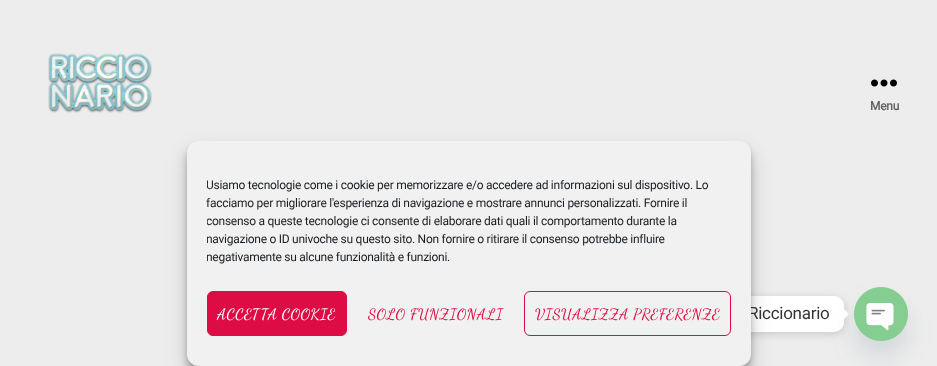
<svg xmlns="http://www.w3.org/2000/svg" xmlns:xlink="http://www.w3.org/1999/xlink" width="937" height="366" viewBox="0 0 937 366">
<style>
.cls-1{font:bold 12px Roboto;letter-spacing:-0.27px;fill:#636363}
.cls-2{font:17px Roboto;letter-spacing:-0.27px;fill:#333333}
.cls-3{font:12px Roboto;letter-spacing:-0.27px;fill:#191e23}
.cls-4{font:500 15px Dancing Script;letter-spacing:0.5px;fill:#dd0c44}
.cls-5{font:500 15px Dancing Script;letter-spacing:0.5px;fill:#ffffff}
</style>
<defs>
<clipPath id="clip1"><rect x="207" y="176" width="524" height="95"/></clipPath>
</defs>
<rect width="100%" height="100%" fill="#ededed"/>
<image xlink:href="image0.png" x="48" y="53" width="104" height="60"/>
<image xlink:href="image1.png" x="871" y="79" width="26" height="8"/>
<rect fill="#000000" fill-opacity="0.15" filter="blur(4px)" x="649" y="298" width="195" height="36" rx="10"/>
<rect fill="#ffffff" x="649" y="296" width="195" height="36" rx="10"/>
<rect fill="#000000" fill-opacity="0.23" filter="blur(3px)" x="187" y="147" width="564" height="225" rx="12"/>
<rect fill="#000000" fill-opacity="0.19" filter="blur(10px)" x="187" y="151" width="564" height="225" rx="12"/>
<path fill="#ffffff" d="M844 319V309L849 314Z"/>
<rect fill="#49687e" fill-opacity="0.16" filter="blur(12px)" x="854" y="303" width="54" height="54" rx="27"/>
<image xlink:href="image2.png" x="854" y="287" width="54" height="54"/>
<text class="cls-1" x="870" y="110">Menu</text>
<text class="cls-2" x="748" y="319">Riccionario</text>
<rect fill="#f1f1f1" x="187" y="141" width="564" height="225" rx="12"/>
<g clip-path="url(#clip1)">
<text class="cls-3" x="206" y="261">negativamente su alcune funzionalità e funzioni.</text>
<text class="cls-3" x="206" y="243">navigazione o ID univoche su questo sito. Non fornire o ritirare il consenso potrebbe influire</text>
<text class="cls-3" x="206" y="225">consenso a queste tecnologie ci consente di elaborare dati quali il comportamento durante la</text>
</g>
<text class="cls-3" x="206" y="207">facciamo per migliorare l'esperienza di navigazione e mostrare annunci personalizzati. Fornire il</text>
<g clip-path="url(#clip1)">
<text class="cls-3" x="206" y="189">Usiamo tecnologie come i cookie per memorizzare e/o accedere ad informazioni sul dispositivo. Lo</text>
</g>
<rect fill="none" stroke="#dd0c44" x="524.5" y="291.5" width="206" height="44" rx="5.5"/>
<text class="cls-4" x="535" y="319">VISUALIZZA PREFERENZE</text>
<text class="cls-4" x="368" y="319">SOLO FUNZIONALI</text>
<rect fill="#dd0c44" stroke="#dd0c44" x="207.5" y="291.5" width="139" height="44" rx="5.5"/>
<text class="cls-5" x="217" y="319">ACCETTA COOKIE</text>
</svg>
